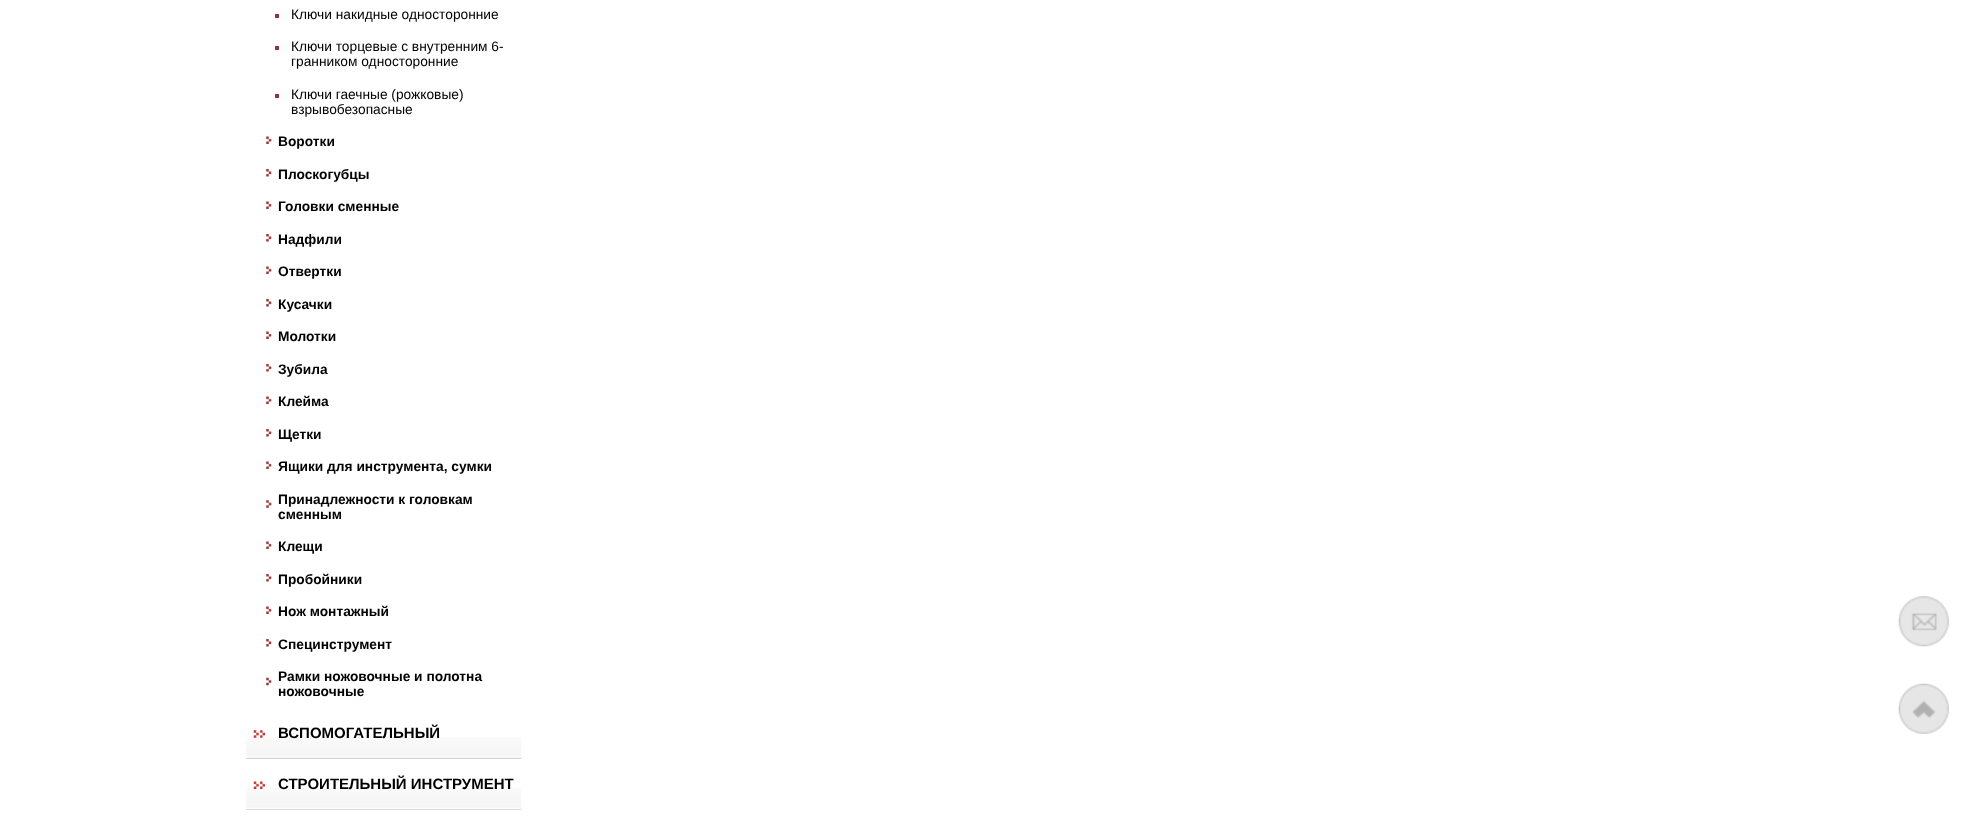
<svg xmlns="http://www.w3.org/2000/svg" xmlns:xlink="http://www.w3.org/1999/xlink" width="1961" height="821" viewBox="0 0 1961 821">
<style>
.cls-1{font:13.75px Liberation Sans;fill:#000000}
.cls-2{font:bold 13.75px Liberation Sans;fill:#000000}
.cls-3{font:bold 15px Liberation Sans;fill:#000000}
</style>
<rect width="100%" height="100%" fill="#ffffff"/>
<rect fill="#993333" x="275" y="14" width="4" height="4"/>
<rect fill="#993333" x="275" y="46" width="4" height="4"/>
<rect fill="#993333" x="275" y="94" width="4" height="4"/>
<image xlink:href="image0.png" x="266" y="136" width="6" height="8"/>
<image xlink:href="image1.png" x="266" y="169" width="6" height="8"/>
<image xlink:href="image0.png" x="266" y="201" width="6" height="8"/>
<image xlink:href="image1.png" x="266" y="234" width="6" height="8"/>
<image xlink:href="image0.png" x="266" y="266" width="6" height="8"/>
<image xlink:href="image1.png" x="266" y="299" width="6" height="8"/>
<image xlink:href="image0.png" x="266" y="331" width="6" height="8"/>
<image xlink:href="image1.png" x="266" y="364" width="6" height="8"/>
<image xlink:href="image0.png" x="266" y="396" width="6" height="8"/>
<image xlink:href="image1.png" x="266" y="429" width="6" height="8"/>
<image xlink:href="image0.png" x="266" y="461" width="6" height="8"/>
<image xlink:href="image2.png" x="266" y="500" width="6" height="8"/>
<image xlink:href="image0.png" x="266" y="541" width="6" height="8"/>
<image xlink:href="image1.png" x="266" y="574" width="6" height="8"/>
<image xlink:href="image0.png" x="266" y="606" width="6" height="8"/>
<image xlink:href="image1.png" x="266" y="639" width="6" height="8"/>
<image xlink:href="image3.png" x="266" y="677" width="6" height="9"/>
<image xlink:href="image4.png" x="246" y="737" width="276" height="22"/>
<image xlink:href="image5.png" x="253" y="730" width="12" height="8"/>
<image xlink:href="image6.png" x="246" y="788" width="276" height="23"/>
<image xlink:href="image7.png" x="253" y="781" width="12" height="8"/>
<image xlink:href="image8.png" x="246" y="810" width="275" height="1"/>
<image xlink:href="image9.png" x="1898" y="596" width="51" height="51"/>
<image xlink:href="image10.png" x="1898" y="683" width="51" height="51"/>
<text class="cls-1" x="291" y="19">Ключи накидные односторонние</text>
<text class="cls-1"><tspan x="291" y="51">Ключи торцевые с внутренним 6-</tspan><tspan x="291" y="66">гранником односторонние</tspan></text>
<text class="cls-1"><tspan x="291" y="99">Ключи гаечные (рожковые)</tspan><tspan x="291" y="114">взрывобезопасные</tspan></text>
<text class="cls-2" x="278" y="146">Воротки</text>
<text class="cls-2" x="278" y="179">Плоскогубцы</text>
<text class="cls-2" x="278" y="211">Головки сменные</text>
<text class="cls-2" x="278" y="244">Надфили</text>
<text class="cls-2" x="278" y="276">Отвертки</text>
<text class="cls-2" x="278" y="309">Кусачки</text>
<text class="cls-2" x="278" y="341">Молотки</text>
<text class="cls-2" x="278" y="374">Зубила</text>
<text class="cls-2" x="278" y="406">Клейма</text>
<text class="cls-2" x="278" y="439">Щетки</text>
<text class="cls-2" x="278" y="471">Ящики для инструмента, сумки</text>
<text class="cls-2"><tspan x="278" y="504">Принадлежности к головкам</tspan><tspan x="278" y="519">сменным</tspan></text>
<text class="cls-2" x="278" y="551">Клещи</text>
<text class="cls-2" x="278" y="584">Пробойники</text>
<text class="cls-2" x="278" y="616">Нож монтажный</text>
<text class="cls-2" x="278" y="649">Специнструмент</text>
<text class="cls-2"><tspan x="278" y="681">Рамки ножовочные и полотна</tspan><tspan x="278" y="696">ножовочные</tspan></text>
<text class="cls-3" x="278" y="738">ВСПОМОГАТЕЛЬНЫЙ</text>
<text class="cls-3" x="278" y="789">СТРОИТЕЛЬНЫЙ ИНСТРУМЕНТ</text>
</svg>
